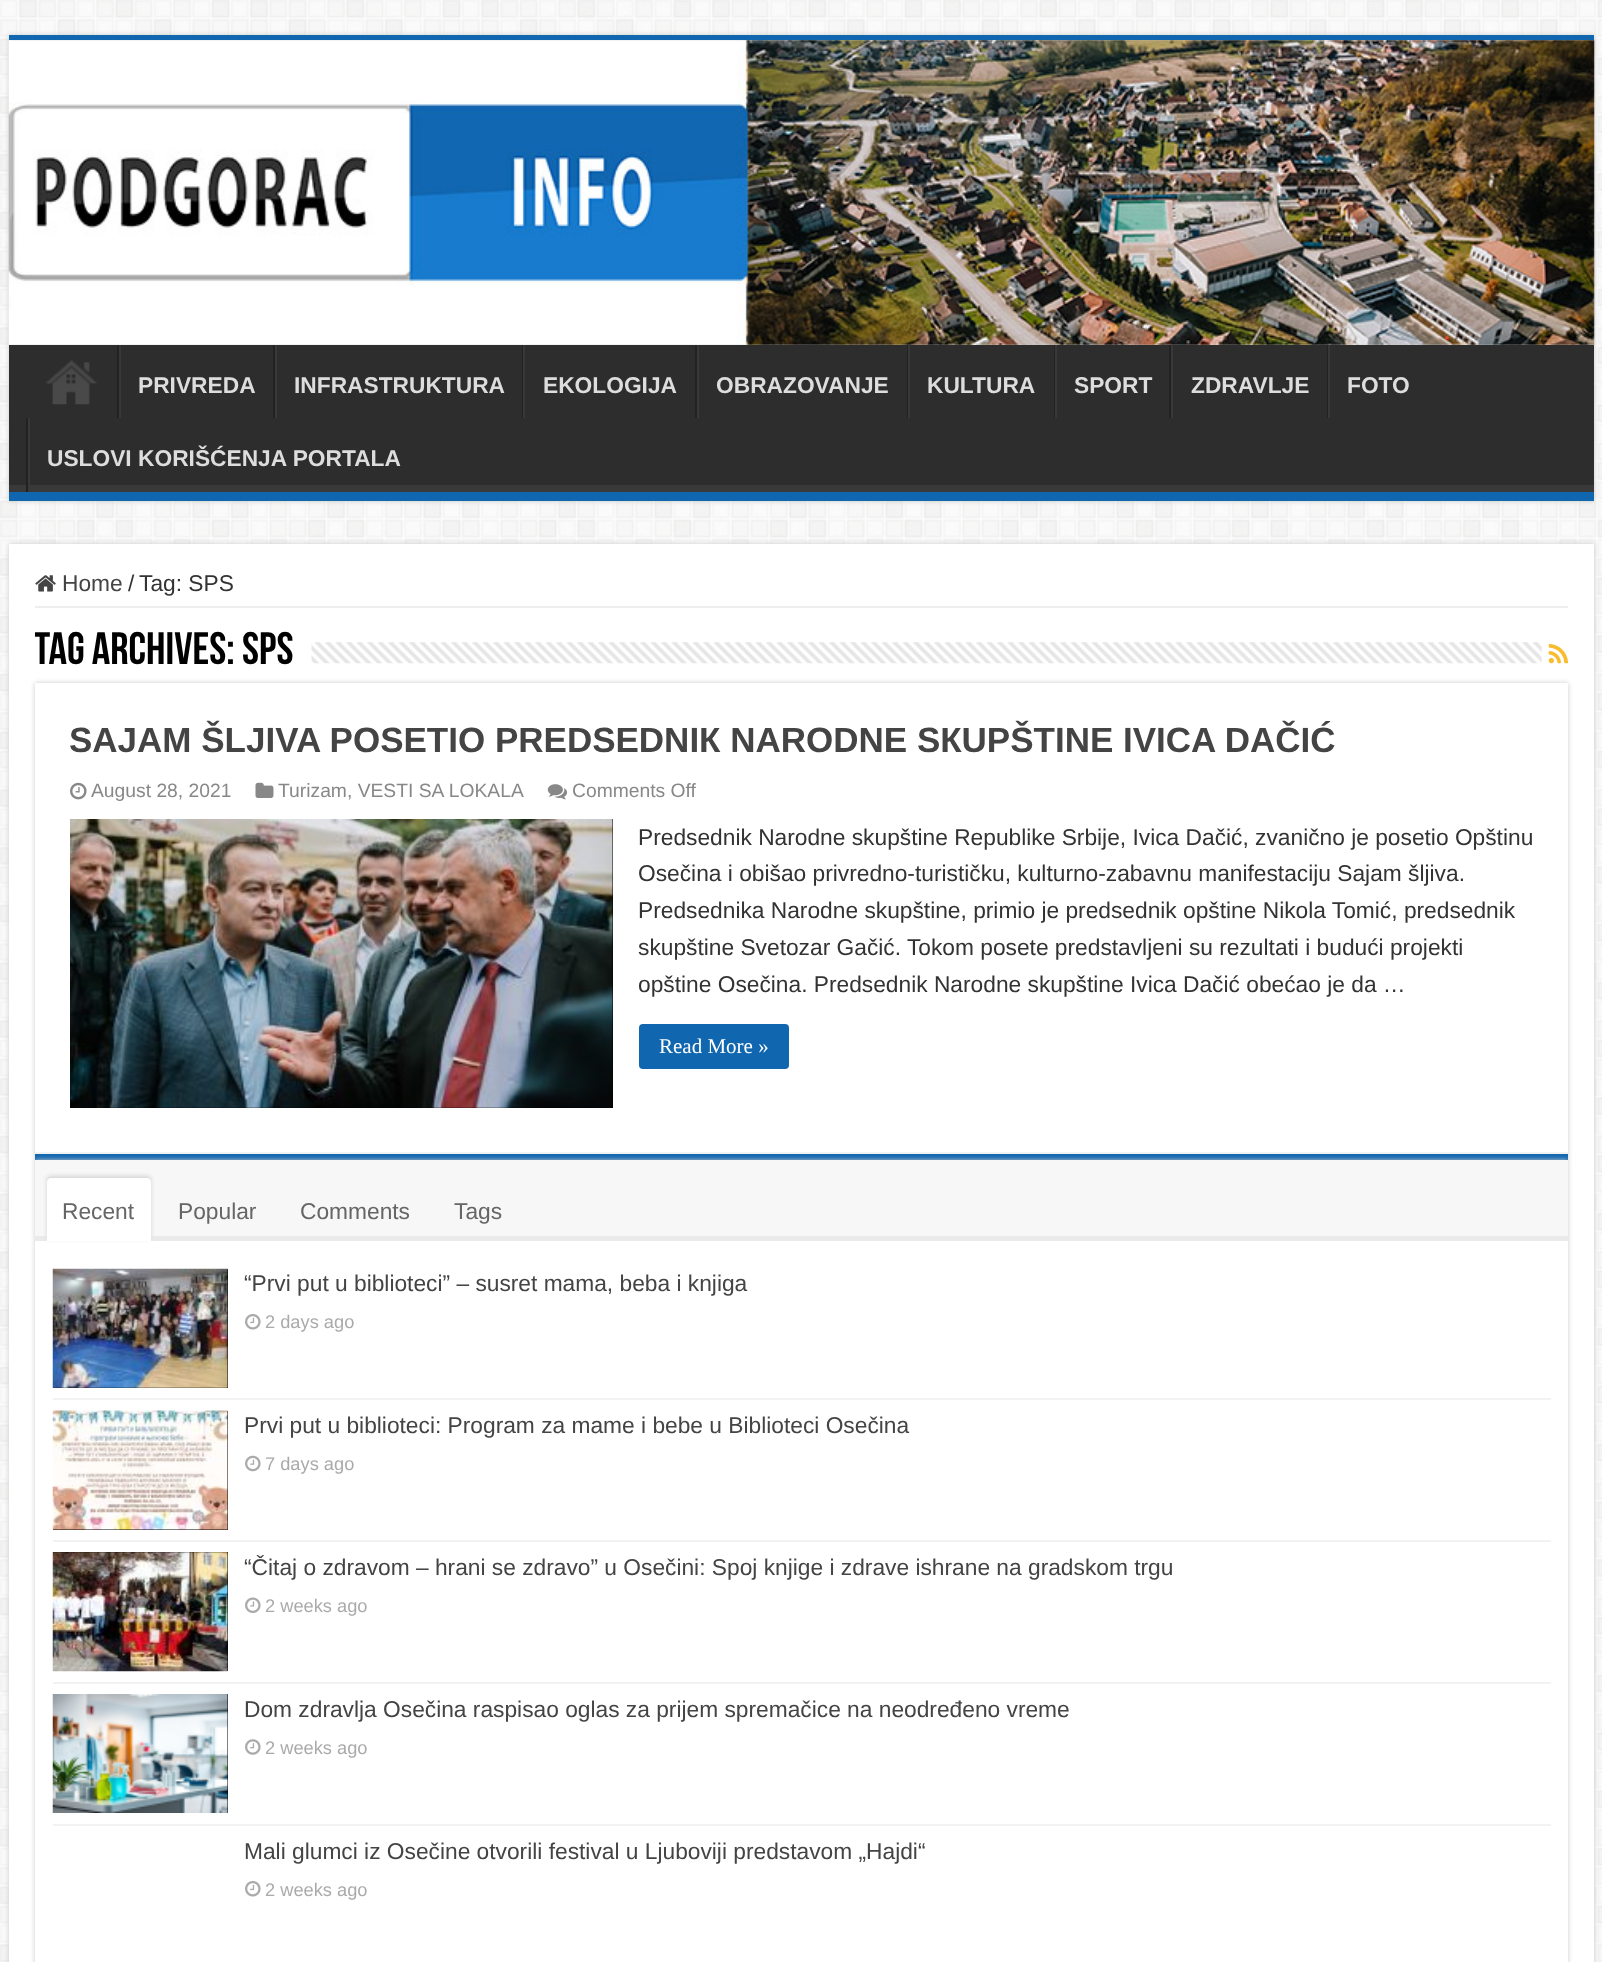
<svg xmlns="http://www.w3.org/2000/svg" xmlns:xlink="http://www.w3.org/1999/xlink" width="1602" height="1962" viewBox="0 0 1602 1962">
<style>
.cls-1{font:bold 22.75px Liberation Sans;fill:#dddddd}
.cls-2{font:22.75px Liberation Sans;fill:#444444}
.cls-3{font:22.75px Liberation Sans;fill:#333333}
.cls-4{font:bold 45.5px Bebas Neue;fill:#000000}
.cls-5{font:bold 35px Liberation Sans;fill:#444444}
.cls-6{font:19.3px Liberation Sans;fill:#888888}
.cls-7{font:21px Liberation Serif;fill:#ffffff}
.cls-8{font:22.75px Liberation Sans;fill:#666666}
.cls-9{font:18.25px Liberation Sans;fill:#aaaaaa}
</style>
<defs>
<clipPath id="clip1"><rect x="9" y="345" width="1585" height="147"/></clipPath>
<clipPath id="clip2"><path d="M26 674H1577V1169H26ZM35 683H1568V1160H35Z" clip-rule="evenodd"/></clipPath>
<clipPath id="clip3"><rect x="35" y="625" width="1533" height="58"/></clipPath>
</defs>
<rect width="100%" height="100%" fill="#ffffff"/>
<image xlink:href="image0.png" x="0" y="0" width="1602" height="1962"/>
<rect fill="#cacaca" filter="blur(2.5px)" x="9" y="35" width="1585" height="466"/>
<rect fill="#1166b0" x="9" y="35" width="1585" height="5"/>
<image xlink:href="image1.png" x="8" y="40" width="1587" height="305"/>
<rect fill="#2d2d2d" x="9" y="345" width="1585" height="140"/>
<g clip-path="url(#clip1)">
<path fill="#393939" fill-rule="evenodd" d="M-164 172H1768V665H-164ZM7 334H1592C1593 334 1594 335 1594 336V483C1594 484 1593 485 1592 485H7C6 485 5 484 5 483V336C5 335 6 334 7 334Z"/>
</g>
<rect fill="#1166b0" x="9" y="492" width="1585" height="9"/>
<image xlink:href="image2.png" x="45" y="360" width="52" height="45"/>
<rect fill="#222222" x="117" y="345" width="2" height="73"/>
<rect fill="#383838" x="119" y="345" width="2" height="73"/>
<rect fill="#222222" x="273" y="345" width="2" height="73"/>
<rect fill="#383838" x="275" y="345" width="2" height="73"/>
<rect fill="#222222" x="522" y="345" width="1" height="73"/>
<rect fill="#383838" x="523" y="345" width="2" height="73"/>
<rect fill="#222222" x="695" y="345" width="2" height="73"/>
<rect fill="#383838" x="697" y="345" width="2" height="73"/>
<rect fill="#222222" x="907" y="345" width="1" height="73"/>
<rect fill="#383838" x="908" y="345" width="2" height="73"/>
<rect fill="#222222" x="1054" y="345" width="1" height="73"/>
<rect fill="#383838" x="1055" y="345" width="2" height="73"/>
<rect fill="#222222" x="1169" y="345" width="2" height="73"/>
<rect fill="#383838" x="1171" y="345" width="2" height="73"/>
<rect fill="#222222" x="1327" y="345" width="1" height="73"/>
<rect fill="#383838" x="1328" y="345" width="2" height="73"/>
<rect fill="#222222" x="26" y="418" width="2" height="74"/>
<rect fill="#383838" x="28" y="418" width="2" height="74"/>
<rect fill="#cacaca" filter="blur(2.5px)" x="9" y="544" width="1585" height="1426"/>
<rect fill="#ffffff" x="9" y="544" width="1585" height="1418"/>
<rect fill="#eeeeee" x="35" y="606" width="1533" height="2"/>
<image xlink:href="image3.png" x="35" y="575" width="21" height="17"/>
<image xlink:href="image4.png" x="311" y="642" width="1231" height="22"/>
<image xlink:href="image5.png" x="1548" y="644" width="20" height="20"/>
<g clip-path="url(#clip2)">
<rect fill="#cacaca" filter="blur(2.5px)" x="35" y="683" width="1533" height="477"/>
</g>
<rect fill="#1166b0" x="35" y="1154" width="1533" height="6"/>
<rect fill="#f2f2f2" x="35" y="1152" width="1533" height="2"/>
<image xlink:href="image6.png" x="70" y="782" width="17" height="18"/>
<image xlink:href="image7.png" x="255" y="782" width="19" height="16"/>
<image xlink:href="image8.png" x="547" y="784" width="21" height="16"/>
<rect fill="#000000" x="70" y="819" width="543" height="289"/>
<image xlink:href="image9.png" x="70" y="819" width="543" height="289"/>
<rect fill="#1166b0" x="639" y="1024" width="150" height="45" rx="4"/>
<rect fill="#cacaca" filter="blur(2.5px)" x="35" y="1160" width="1533" height="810"/>
<rect fill="#ffffff" x="35" y="1241" width="1533" height="721"/>
<rect fill="#f7f7f7" x="35" y="1160" width="1533" height="76"/>
<rect fill="#eaeaea" x="35" y="1236" width="1533" height="5"/>
<rect fill="#d4d4d4" filter="blur(2px)" x="47" y="1176" width="104" height="63" rx="4"/>
<path fill="#ffffff" d="M51 1178H147C149 1178 151 1180 151 1182V1241H47V1182C47 1180 49 1178 51 1178Z"/>
<rect fill="#f2f2f2" x="53" y="1398" width="1498" height="2"/>
<rect fill="#000000" x="53" y="1269" width="175" height="119"/>
<image xlink:href="image10.png" x="52" y="1268" width="176" height="120"/>
<image xlink:href="image11.png" x="245" y="1314" width="16" height="16"/>
<rect fill="#f2f2f2" x="53" y="1540" width="1498" height="2"/>
<rect fill="#000000" x="53" y="1411" width="175" height="119"/>
<image xlink:href="image12.png" x="52" y="1410" width="176" height="120"/>
<image xlink:href="image13.png" x="245" y="1455" width="16" height="17"/>
<rect fill="#f2f2f2" x="53" y="1682" width="1498" height="2"/>
<rect fill="#000000" x="53" y="1552" width="175" height="119"/>
<image xlink:href="image14.png" x="52" y="1552" width="176" height="120"/>
<image xlink:href="image15.png" x="245" y="1597" width="16" height="16"/>
<rect fill="#f2f2f2" x="53" y="1824" width="1498" height="2"/>
<rect fill="#000000" x="227" y="1694" width="1" height="119"/>
<image xlink:href="image16.png" x="52" y="1694" width="176" height="119"/>
<image xlink:href="image17.png" x="245" y="1739" width="16" height="16"/>
<image xlink:href="image11.png" x="245" y="1881" width="16" height="16"/>
<text class="cls-1" x="138" y="393">PRIVREDA</text>
<text class="cls-1" x="294" y="393">INFRASTRUKTURA</text>
<text class="cls-1" x="543" y="393">EKOLOGIJA</text>
<text class="cls-1" x="716" y="393">OBRAZOVANJE</text>
<text class="cls-1" x="927" y="393">KULTURA</text>
<text class="cls-1" x="1074" y="393">SPORT</text>
<text class="cls-1" x="1191" y="393">ZDRAVLJE</text>
<text class="cls-1" x="1347" y="393">FOTO</text>
<text class="cls-1" x="47" y="466">USLOVI KORIŠĆENJA PORTALA</text>
<text class="cls-2" x="62" y="591">Home</text>
<text class="cls-3" x="128" y="591">/</text>
<text class="cls-3" x="139" y="591">Tag: SPS</text>
<g clip-path="url(#clip3)">
<text class="cls-4" x="34" y="664">Tag Archives:</text>
</g>
<text class="cls-4" x="242" y="664">SPS</text>
<text class="cls-5" x="69" y="752">SAJAM ŠLJIVA POSETIO PREDSEDNIК NARODNE SКUPŠTINE IVICA DAČIĆ</text>
<text class="cls-6" x="91" y="797">August 28, 2021</text>
<text class="cls-6" x="278" y="797">Turizam, VESTI SA LOKALA</text>
<text class="cls-6" x="572" y="797">Comments Off</text>
<text class="cls-3"><tspan x="638" y="845">Predsednik Narodne skupštine Republike Srbije, Ivica Dačić, zvanično je posetio Opštinu</tspan><tspan x="638" y="881">Osečina i obišao privredno-turističku, kulturno-zabavnu manifestaciju Sajam šljiva.</tspan><tspan x="638" y="918">Predsednika Narodne skupštine, primio je predsednik opštine Nikola Tomić, predsednik</tspan><tspan x="638" y="955">skupštine Svetozar Gačić. Tokom posete predstavljeni su rezultati i budući projekti</tspan><tspan x="638" y="992">opštine Osečina. Predsednik Narodne skupštine Ivica Dačić obećao je da …</tspan></text>
<text class="cls-7" x="659" y="1053">Read More »</text>
<text class="cls-8" x="62" y="1219">Recent</text>
<text class="cls-8" x="178" y="1219">Popular</text>
<text class="cls-8" x="300" y="1219">Comments</text>
<text class="cls-8" x="454" y="1219">Tags</text>
<text class="cls-2" x="244" y="1291">“Prvi put u biblioteci” – susret mama, beba i knjiga</text>
<text class="cls-9" x="265" y="1328">2 days ago</text>
<text class="cls-2" x="244" y="1433">Prvi put u biblioteci: Program za mame i bebe u Biblioteci Osečina</text>
<text class="cls-9" x="265" y="1470">7 days ago</text>
<text class="cls-2" x="244" y="1575">“Čitaj o zdravom – hrani se zdravo” u Osečini: Spoj knjige i zdrave ishrane na gradskom trgu</text>
<text class="cls-9" x="265" y="1612">2 weeks ago</text>
<text class="cls-2" x="244" y="1717">Dom zdravlja Osečina raspisao oglas za prijem spremačice na neodređeno vreme</text>
<text class="cls-9" x="265" y="1754">2 weeks ago</text>
<text class="cls-2" x="244" y="1859">Mali glumci iz Osečine otvorili festival u Ljuboviji predstavom „Hajdi“</text>
<text class="cls-9" x="265" y="1896">2 weeks ago</text>
</svg>
